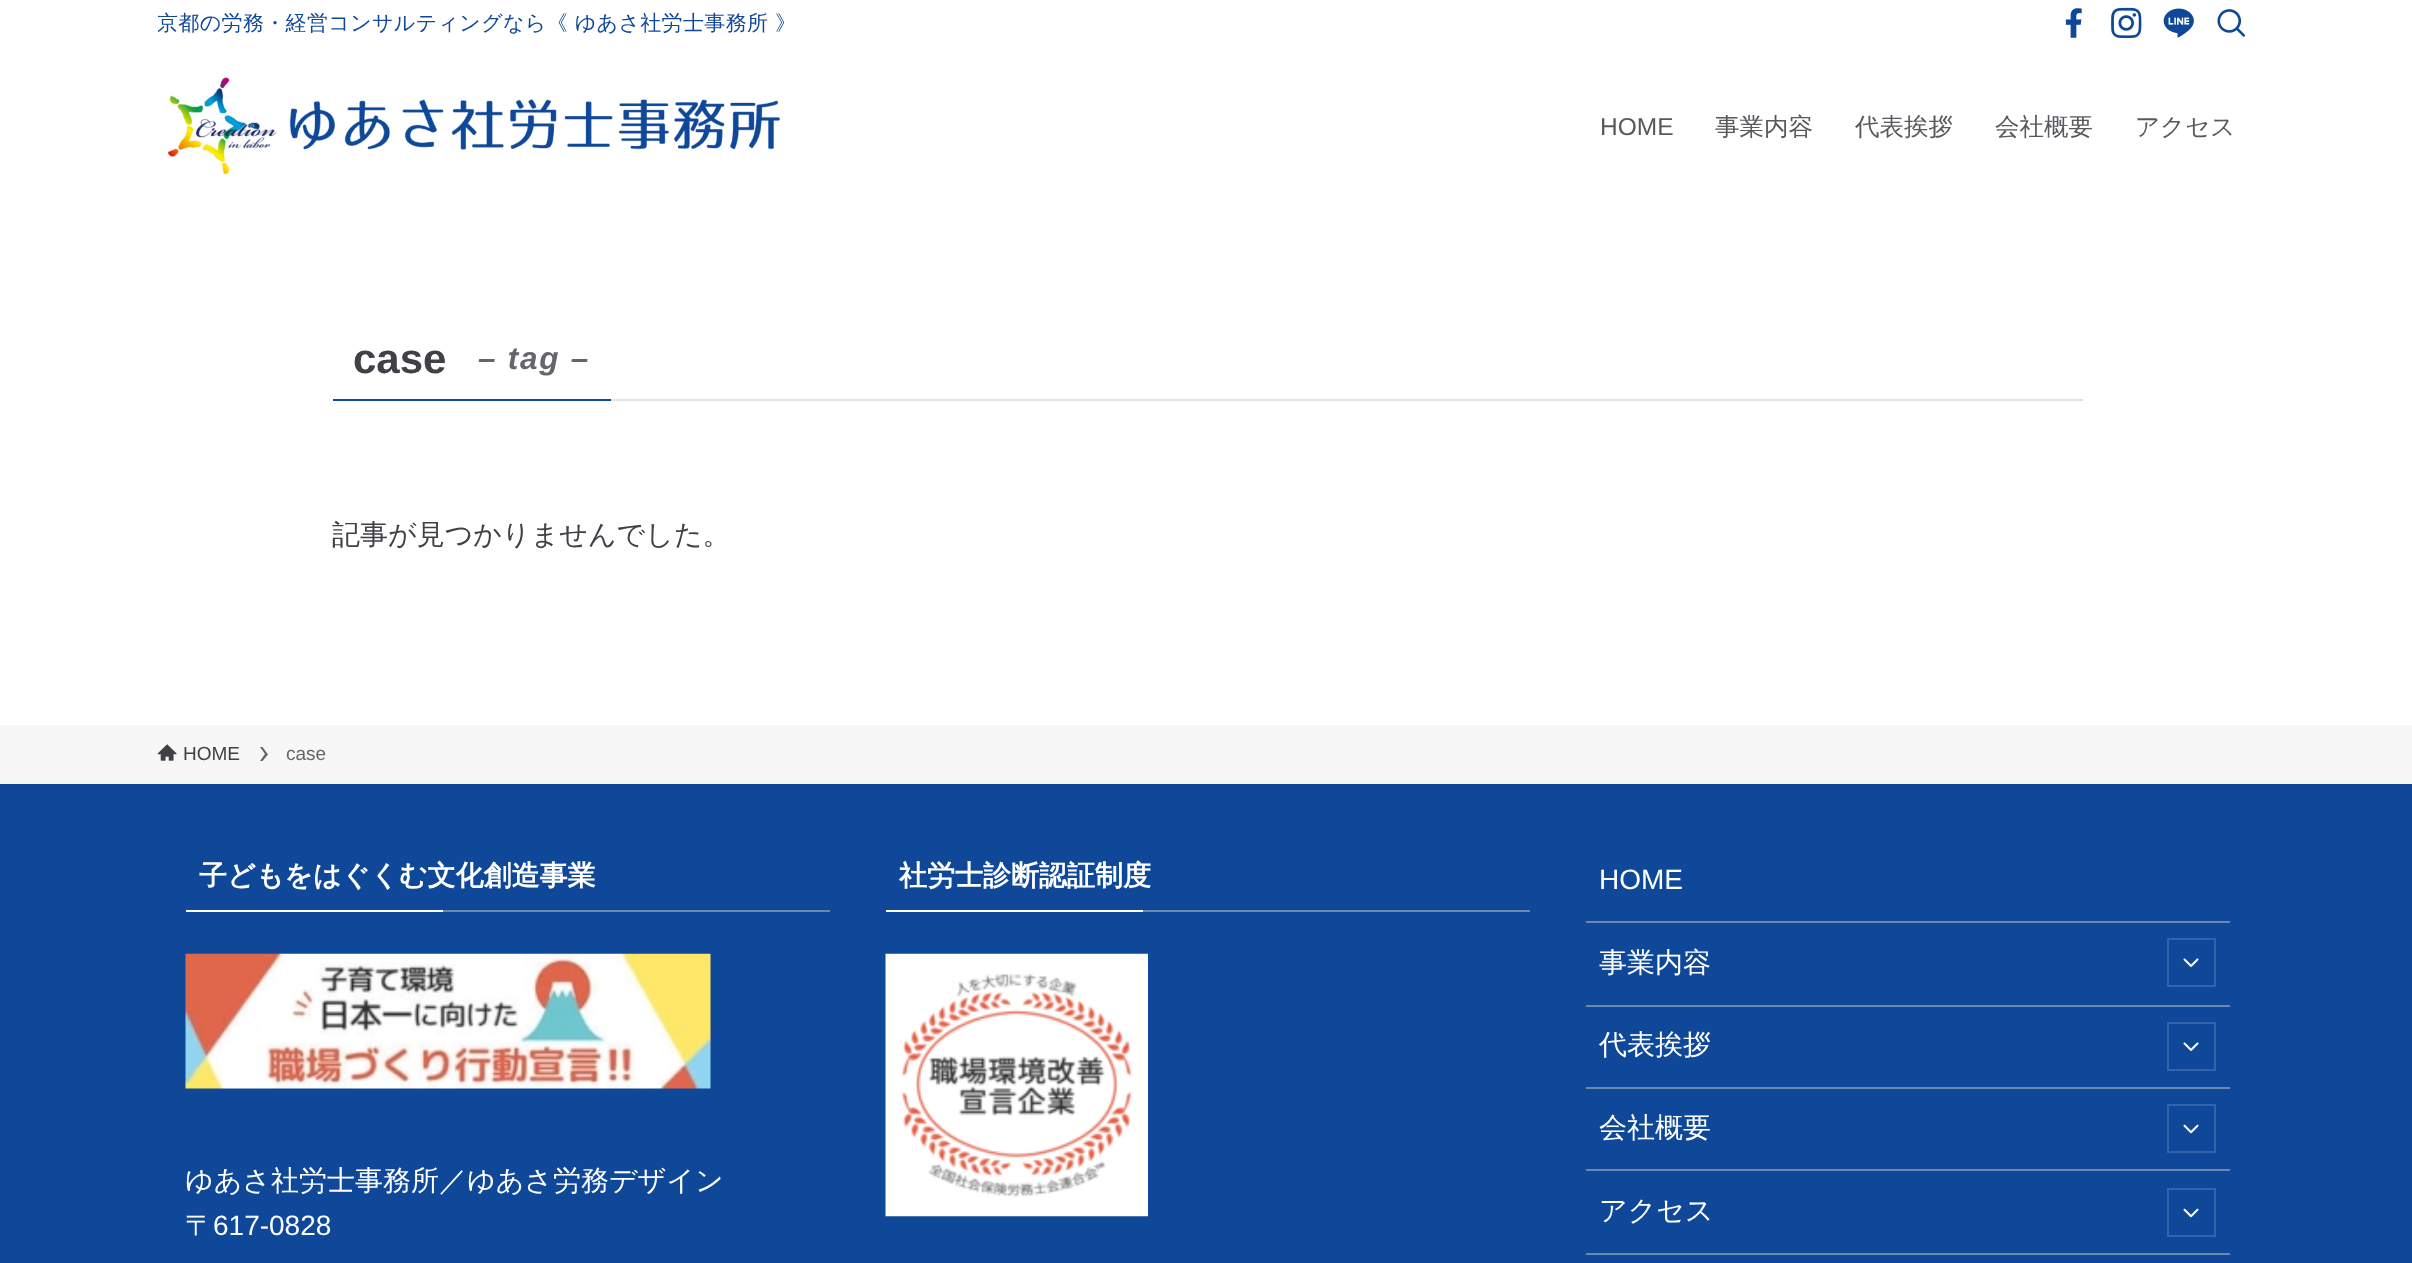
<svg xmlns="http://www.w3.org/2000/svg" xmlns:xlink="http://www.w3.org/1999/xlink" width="2412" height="1263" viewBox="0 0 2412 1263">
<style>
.cls-1{font:500 21px WenQuanYi Zen Hei;letter-spacing:0.35px;fill:#0f4899}
.cls-2{font:24.5px Liberation Sans;fill:#59585e}
.cls-3{font:500 24.5px WenQuanYi Zen Hei;fill:#59585e}
.cls-4{font:bold 42px Liberation Sans;fill:#414047}
.cls-5{font:italic bold 31.5px Liberation Sans;letter-spacing:1.75px;fill:#65656a}
.cls-6{font:500 28px WenQuanYi Zen Hei;fill:#414047}
.cls-7{font:19px Liberation Sans;fill:#414047}
.cls-8{font:19px Liberation Sans;fill:#65656a}
.cls-9{font:bold 28px WenQuanYi Zen Hei;fill:#ffffff}
.cls-10{font:500 28px WenQuanYi Zen Hei;fill:#ffffff}
.cls-11{font:28px Liberation Sans;fill:#ffffff}
</style>
<defs>
<clipPath id="clip1"><rect x="158" y="4" width="1050" height="38"/></clipPath>
</defs>
<rect width="100%" height="100%" fill="#ffffff"/>
<image xlink:href="image0.png" x="2065" y="8" width="17" height="30"/>
<image xlink:href="image1.png" x="2111" y="7" width="31" height="32"/>
<image xlink:href="image2.png" x="2163" y="8" width="31" height="30"/>
<image xlink:href="image3.png" x="2217" y="9" width="29" height="28"/>
<image xlink:href="image4.png" x="167" y="77" width="613" height="98"/>
<rect fill="#e3e3e3" x="611" y="399" width="1472" height="2"/>
<rect fill="#0f4899" x="333" y="399" width="278" height="2"/>
<rect fill="#f7f7f7" x="0" y="725" width="2412" height="59"/>
<image xlink:href="image5.png" x="157" y="744" width="20" height="17"/>
<path fill="#65656a" d="M262.5 747H260L265 754L260 761H262.5L268 754.5Z"/>
<rect fill="#0f4899" x="0" y="784" width="2412" height="479"/>
<rect fill="#ffffff" x="186" y="910" width="257" height="2"/>
<rect fill="#6b88b0" x="443" y="910" width="387" height="2"/>
<image xlink:href="image6.png" x="185" y="953" width="526" height="136"/>
<rect fill="#ffffff" x="886" y="910" width="257" height="2"/>
<rect fill="#6b88b0" x="1143" y="910" width="387" height="2"/>
<image xlink:href="image7.png" x="885" y="953" width="263" height="264"/>
<rect fill="#6b88b0" x="1586" y="921" width="644" height="2"/>
<rect fill="#6b88b0" x="1586" y="1005" width="644" height="2"/>
<image xlink:href="image8.png" x="2183" y="958" width="16" height="9"/>
<rect fill="none" stroke="#3363a8" stroke-width="2" x="2168" y="939" width="47" height="47"/>
<rect fill="#6b88b0" x="1586" y="1087" width="644" height="2"/>
<image xlink:href="image8.png" x="2183" y="1042" width="16" height="9"/>
<rect fill="none" stroke="#3363a8" stroke-width="2" x="2168" y="1023" width="47" height="47"/>
<rect fill="#6b88b0" x="1586" y="1169" width="644" height="2"/>
<image xlink:href="image9.png" x="2183" y="1124" width="16" height="10"/>
<rect fill="none" stroke="#3363a8" stroke-width="2" x="2168" y="1105" width="47" height="47"/>
<rect fill="#6b88b0" x="1586" y="1253" width="644" height="2"/>
<image xlink:href="image9.png" x="2183" y="1208" width="16" height="10"/>
<rect fill="none" stroke="#3363a8" stroke-width="2" x="2168" y="1189" width="47" height="47"/>
<g clip-path="url(#clip1)">
<text class="cls-1" x="157" y="30">京都の労務・経営コンサルティングなら《 ゆあさ社労士事務所 》</text>
</g>
<text class="cls-2" x="1600" y="135">HOME</text>
<text class="cls-3" x="1715" y="135">事業内容</text>
<text class="cls-3" x="1855" y="135">代表挨拶</text>
<text class="cls-3" x="1995" y="135">会社概要</text>
<text class="cls-3" x="2135" y="135">アクセス</text>
<text class="cls-4" x="353" y="373">case</text>
<text class="cls-5" x="478" y="369">– tag –</text>
<text class="cls-6" x="332" y="544">記事が見つかりませんでした。</text>
<text class="cls-7" x="183" y="760">HOME</text>
<text class="cls-8" x="286" y="760">case</text>
<text class="cls-9" x="199" y="885">子どもをはぐくむ文化創造事業</text>
<text class="cls-10"><tspan x="185" y="1190">ゆあさ社労士事務所／ゆあさ労務デザイン</tspan><tspan x="185" y="1235">〒</tspan></text>
<text class="cls-11" x="213" y="1235">617-0828</text>
<text class="cls-9" x="899" y="885">社労士診断認証制度</text>
<text class="cls-11" x="1599" y="889">HOME</text>
<text class="cls-10" x="1599" y="972">事業内容</text>
<text class="cls-10" x="1599" y="1054">代表挨拶</text>
<text class="cls-10" x="1599" y="1137">会社概要</text>
<text class="cls-10" x="1599" y="1220">アクセス</text>
</svg>
